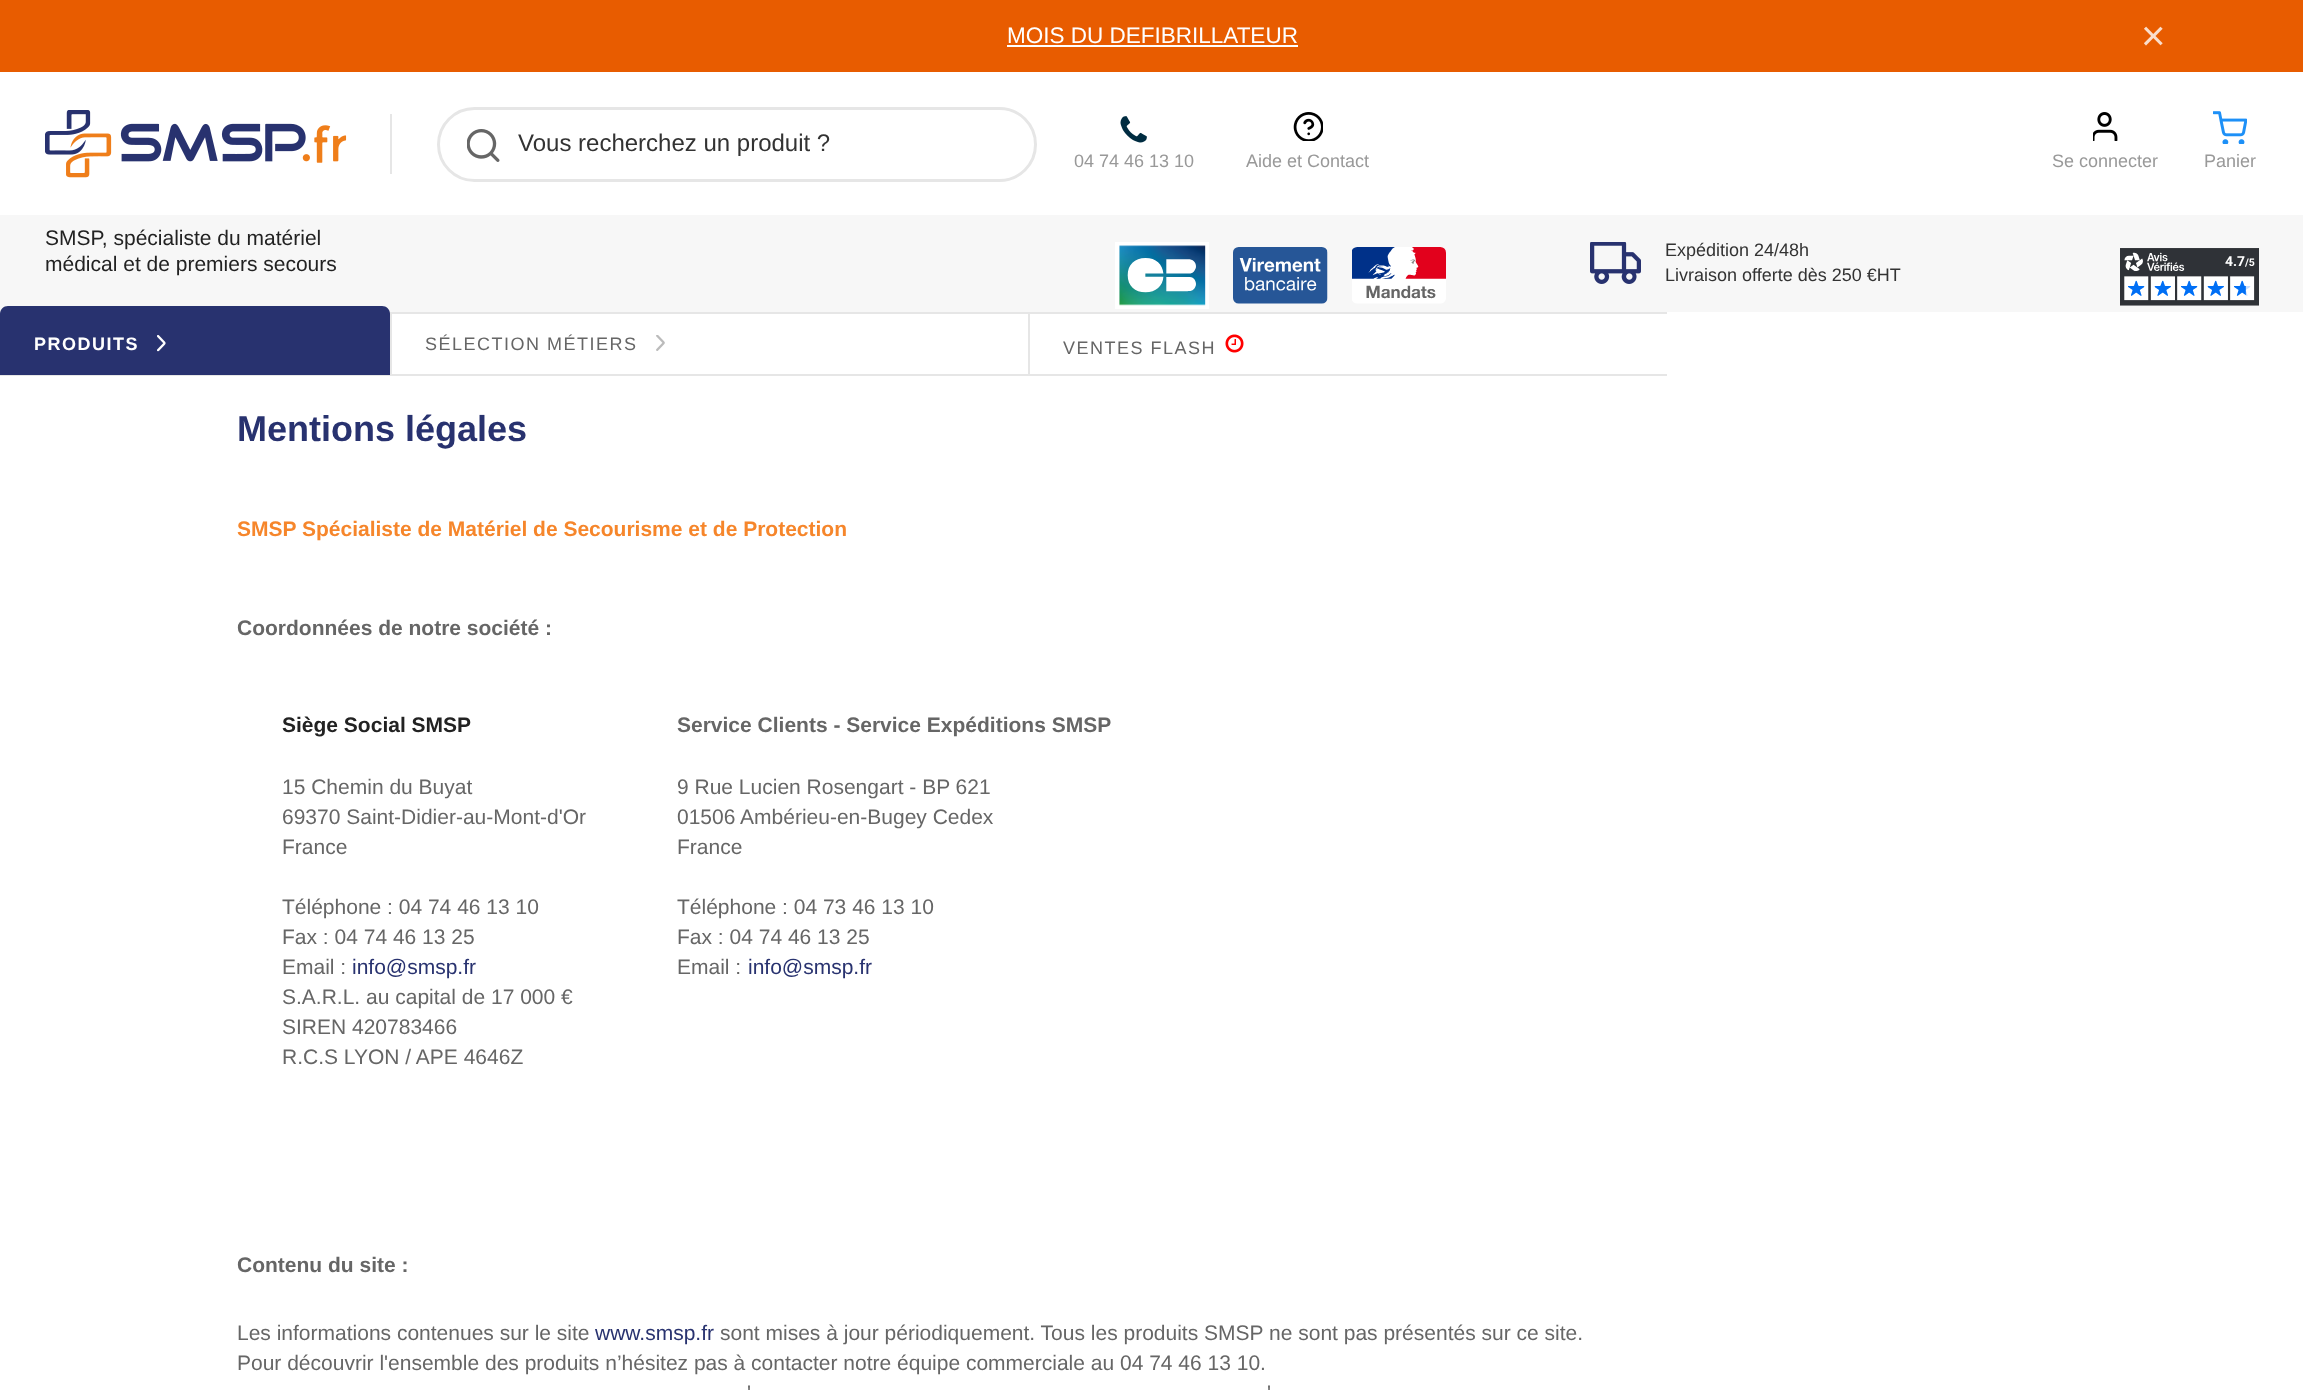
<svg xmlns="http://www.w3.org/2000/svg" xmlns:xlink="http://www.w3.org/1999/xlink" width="2303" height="1391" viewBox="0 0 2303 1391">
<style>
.cls-1{font:22.5px Liberation Sans;fill:#ffffff}
.cls-2{font:42px Liberation Sans;fill:#fadecc}
.cls-3{font:24px Liberation Sans;fill:#333333}
.cls-4{font:18px Liberation Sans;fill:#999999}
.cls-5{font:21px Liberation Sans;fill:#222222}
.cls-6{font:18px Liberation Sans;fill:#333333}
.cls-7{font:bold 18px Liberation Sans;letter-spacing:1.5px;fill:#ffffff}
.cls-8{font:18px Liberation Sans;letter-spacing:1.5px;fill:#666666}
.cls-9{font:bold 36px Liberation Sans;fill:#28326f}
.cls-10{font:bold 21px Liberation Sans;fill:#f6862b}
.cls-11{font:bold 21px Liberation Sans;fill:#666666}
.cls-12{font:bold 21px Liberation Sans;fill:#222222}
.cls-13{font:21px Liberation Sans;fill:#666666}
.cls-14{font:21px Liberation Sans;fill:#28326f}
</style>
<rect width="100%" height="100%" fill="#ffffff"/>
<rect fill="#e85c00" x="0" y="0" width="2303" height="72"/>
<rect fill="#ffffff" x="1007" y="45" width="291" height="2"/>
<image xlink:href="image0.png" x="45" y="110" width="302" height="68"/>
<rect fill="#e6e6e6" x="390" y="114" width="2" height="60"/>
<rect fill="none" stroke="#e6e6e6" stroke-width="3" x="438.5" y="108.5" width="597" height="72" rx="36"/>
<image xlink:href="image1.png" x="467" y="129" width="33" height="33"/>
<image xlink:href="image2.png" x="1120" y="116" width="27" height="27"/>
<image xlink:href="image3.png" x="1293" y="112" width="30" height="29"/>
<image xlink:href="image4.png" x="2093" y="112" width="25" height="29"/>
<image xlink:href="image5.png" x="2213" y="111" width="34" height="33"/>
<rect fill="#f7f7f7" x="0" y="215" width="2303" height="97"/>
<image xlink:href="image6.png" x="1115" y="242" width="94" height="67"/>
<image xlink:href="image7.png" x="1233" y="247" width="95" height="57"/>
<image xlink:href="image8.png" x="1352" y="247" width="94" height="57"/>
<image xlink:href="image9.png" x="1590" y="242" width="51" height="42"/>
<image xlink:href="image10.png" x="2120" y="248" width="139" height="58"/>
<rect fill="#e6e6e6" x="0" y="375" width="390" height="1"/>
<path fill="#28326f" d="M8 306H382C386.5 306 390 309.5 390 314V375H0V314C0 309.5 3.5 306 8 306Z"/>
<image xlink:href="image11.png" x="157" y="335" width="9" height="17"/>
<rect fill="#e6e6e6" x="390" y="312" width="1277" height="2"/>
<rect fill="#e6e6e6" x="390" y="374" width="1277" height="2"/>
<rect fill="#e6e6e6" x="390" y="312" width="2" height="63"/>
<image xlink:href="image12.png" x="656" y="335" width="9" height="16"/>
<rect fill="#e6e6e6" x="1028" y="312" width="2" height="63"/>
<image xlink:href="image13.png" x="1225" y="334" width="19" height="19"/>
<text class="cls-1" x="1007" y="43">MOIS DU DEFIBRILLATEUR</text>
<text class="cls-2" x="2141" y="50">×</text>
<text class="cls-3" x="518" y="151">Vous recherchez un produit ?</text>
<text class="cls-4" x="1074" y="167">04 74 46 13 10</text>
<text class="cls-4" x="1246" y="167">Aide et Contact</text>
<text class="cls-4" x="2052" y="167">Se connecter</text>
<text class="cls-4" x="2204" y="167">Panier</text>
<text class="cls-5"><tspan x="45" y="245">SMSP, spécialiste du matériel</tspan><tspan x="45" y="271">médical et de premiers secours</tspan></text>
<text class="cls-6"><tspan x="1665" y="256">Expédition 24/48h</tspan><tspan x="1665" y="281">Livraison offerte dès 250 €HT</tspan></text>
<text class="cls-7" x="34" y="350">PRODUITS</text>
<text class="cls-8" x="425" y="350">SÉLECTION MÉTIERS</text>
<text class="cls-8" x="1063" y="354">VENTES FLASH</text>
<text class="cls-9" x="237" y="441">Mentions légales</text>
<text class="cls-10" x="237" y="536">SMSP Spécialiste de Matériel de Secourisme et de Protection</text>
<text class="cls-11" x="237" y="635">Coordonnées de notre société :</text>
<text class="cls-12" x="282" y="732">Siège Social SMSP</text>
<text class="cls-11" x="677" y="732">Service Clients - Service Expéditions SMSP</text>
<text class="cls-13"><tspan x="282" y="794">15 Chemin du Buyat</tspan><tspan x="282" y="824">69370 Saint-Didier-au-Mont-d'Or</tspan><tspan x="282" y="854">France</tspan></text>
<text class="cls-13"><tspan x="282" y="914">Téléphone : 04 74 46 13 10</tspan><tspan x="282" y="944">Fax : 04 74 46 13 25</tspan><tspan x="282" y="974">Email :</tspan></text>
<text class="cls-14" x="352" y="974">info@smsp.fr</text>
<text class="cls-13"><tspan x="282" y="1004">S.A.R.L. au capital de 17 000 €</tspan><tspan x="282" y="1034">SIREN 420783466</tspan><tspan x="282" y="1064">R.C.S LYON / APE 4646Z</tspan></text>
<text class="cls-13"><tspan x="677" y="794">9 Rue Lucien Rosengart - BP 621</tspan><tspan x="677" y="824">01506 Ambérieu-en-Bugey Cedex</tspan><tspan x="677" y="854">France</tspan></text>
<text class="cls-13"><tspan x="677" y="914">Téléphone : 04 73 46 13 10</tspan><tspan x="677" y="944">Fax : 04 74 46 13 25</tspan><tspan x="677" y="974">Email :</tspan></text>
<text class="cls-14" x="748" y="974">info@smsp.fr</text>
<text class="cls-11" x="237" y="1272">Contenu du site :</text>
<text class="cls-13" x="237" y="1340">Les informations contenues sur le site</text>
<text class="cls-14" x="595" y="1340">www.smsp.fr</text>
<text class="cls-13" x="720" y="1340">sont mises à jour périodiquement. Tous les produits SMSP ne sont pas présentés sur ce site.</text>
<text class="cls-13" x="237" y="1370">Pour découvrir l'ensemble des produits n’hésitez pas à contacter notre équipe commerciale au 04 74 46 13 10.</text>
<text class="cls-13" x="747" y="1400">'</text>
<text class="cls-13" x="1267" y="1400">'</text>
</svg>
